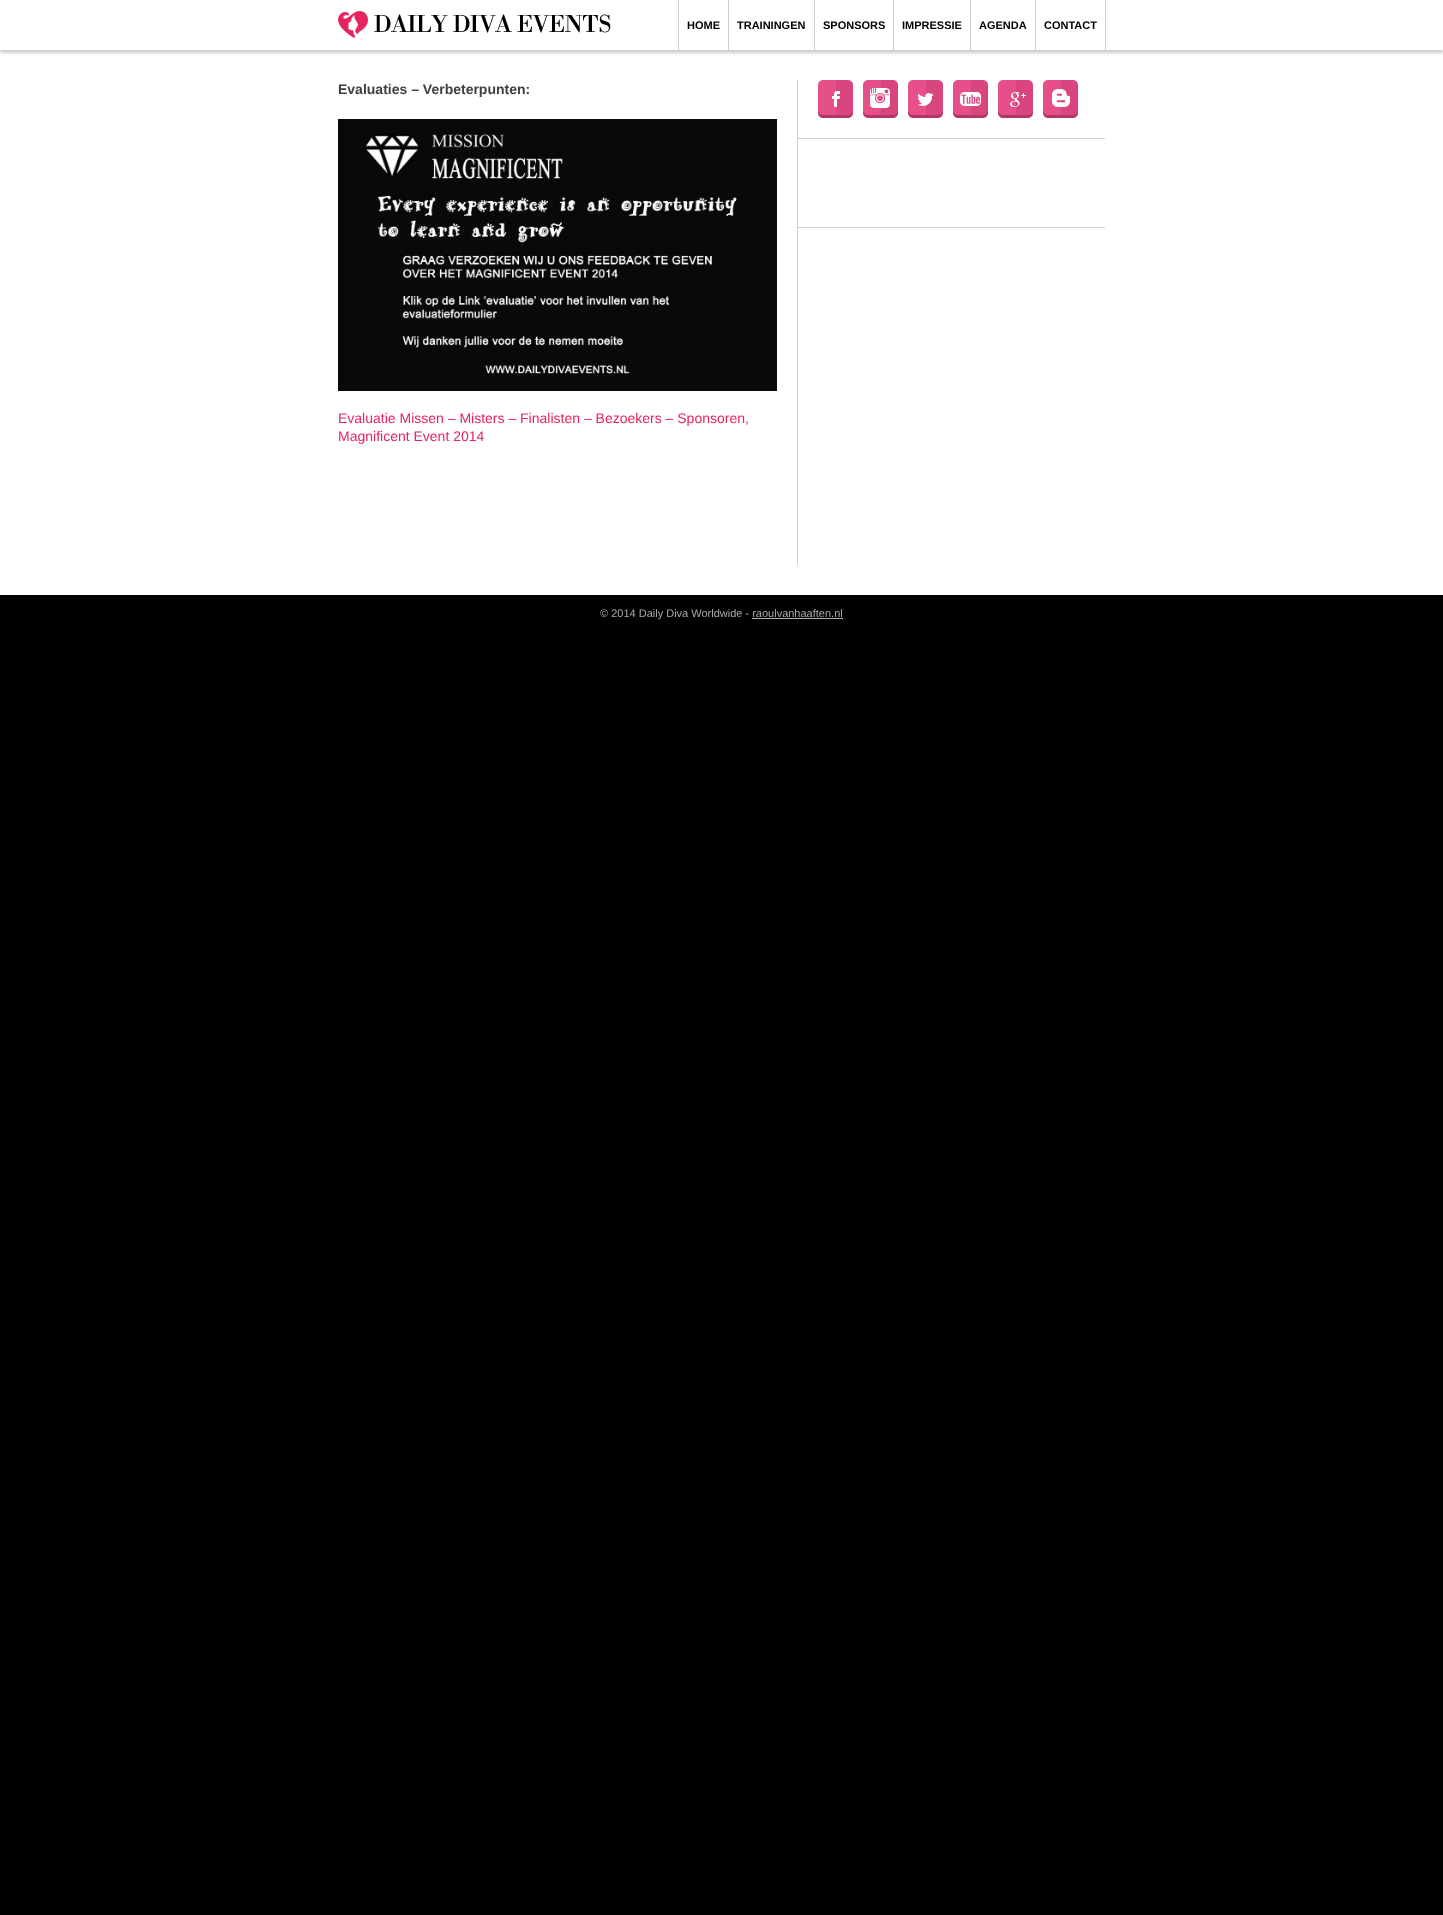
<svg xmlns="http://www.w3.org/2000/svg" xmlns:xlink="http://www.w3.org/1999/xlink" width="1443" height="1915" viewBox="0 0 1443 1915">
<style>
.cls-1{font:bold 11px Liberation Sans;fill:#000000}
.cls-2{font:bold 14px Liberation Sans;fill:#404040}
.cls-3{font:14px Liberation Sans;fill:#e5255f}
.cls-4{font:11px Liberation Sans;fill:#aaaaaa}
</style>
<rect width="100%" height="100%" fill="#000000"/>
<rect fill="#ffffff" x="0" y="50" width="1443" height="545"/>
<rect fill="#000000" fill-opacity="0.2" filter="blur(1.5px)" x="0" y="3" width="1443" height="50"/>
<rect fill="#ffffff" x="0" y="0" width="1443" height="50"/>
<image xlink:href="image0.png" x="338" y="11" width="273" height="27"/>
<rect fill="#cfcfcf" x="678" y="0" width="1" height="50"/>
<rect fill="#cfcfcf" x="728" y="0" width="1" height="50"/>
<rect fill="#cfcfcf" x="814" y="0" width="1" height="50"/>
<rect fill="#cfcfcf" x="893" y="0" width="1" height="50"/>
<rect fill="#cfcfcf" x="970" y="0" width="1" height="50"/>
<rect fill="#cfcfcf" x="1035" y="0" width="1" height="50"/>
<rect fill="#cfcfcf" x="1105" y="0" width="1" height="50"/>
<rect fill="#cfcfcf" x="797" y="80" width="1" height="485"/>
<image xlink:href="image1.png" x="338" y="119" width="439" height="272"/>
<rect fill="#cfcfcf" x="798" y="138" width="307" height="1"/>
<image xlink:href="image2.png" x="818" y="80" width="35" height="38"/>
<image xlink:href="image3.png" x="863" y="80" width="35" height="38"/>
<image xlink:href="image4.png" x="908" y="80" width="35" height="38"/>
<image xlink:href="image5.png" x="953" y="80" width="35" height="38"/>
<image xlink:href="image6.png" x="998" y="80" width="35" height="38"/>
<image xlink:href="image7.png" x="1043" y="80" width="35" height="38"/>
<rect fill="#cfcfcf" x="798" y="227" width="307" height="1"/>
<rect fill="#aaaaaa" x="752" y="618" width="91" height="1"/>
<text class="cls-1" x="687" y="29">HOME</text>
<text class="cls-1" x="737" y="29">TRAININGEN</text>
<text class="cls-1" x="823" y="29">SPONSORS</text>
<text class="cls-1" x="902" y="29">IMPRESSIE</text>
<text class="cls-1" x="979" y="29">AGENDA</text>
<text class="cls-1" x="1044" y="29">CONTACT</text>
<text class="cls-2" x="338" y="94">Evaluaties – Verbeterpunten:</text>
<text class="cls-3"><tspan x="338" y="423">Evaluatie Missen – Misters – Finalisten – Bezoekers – Sponsoren,</tspan><tspan x="338" y="441">Magnificent Event 2014</tspan></text>
<text class="cls-4" x="600" y="617">© 2014 Daily Diva Worldwide - raoulvanhaaften.nl</text>
</svg>
